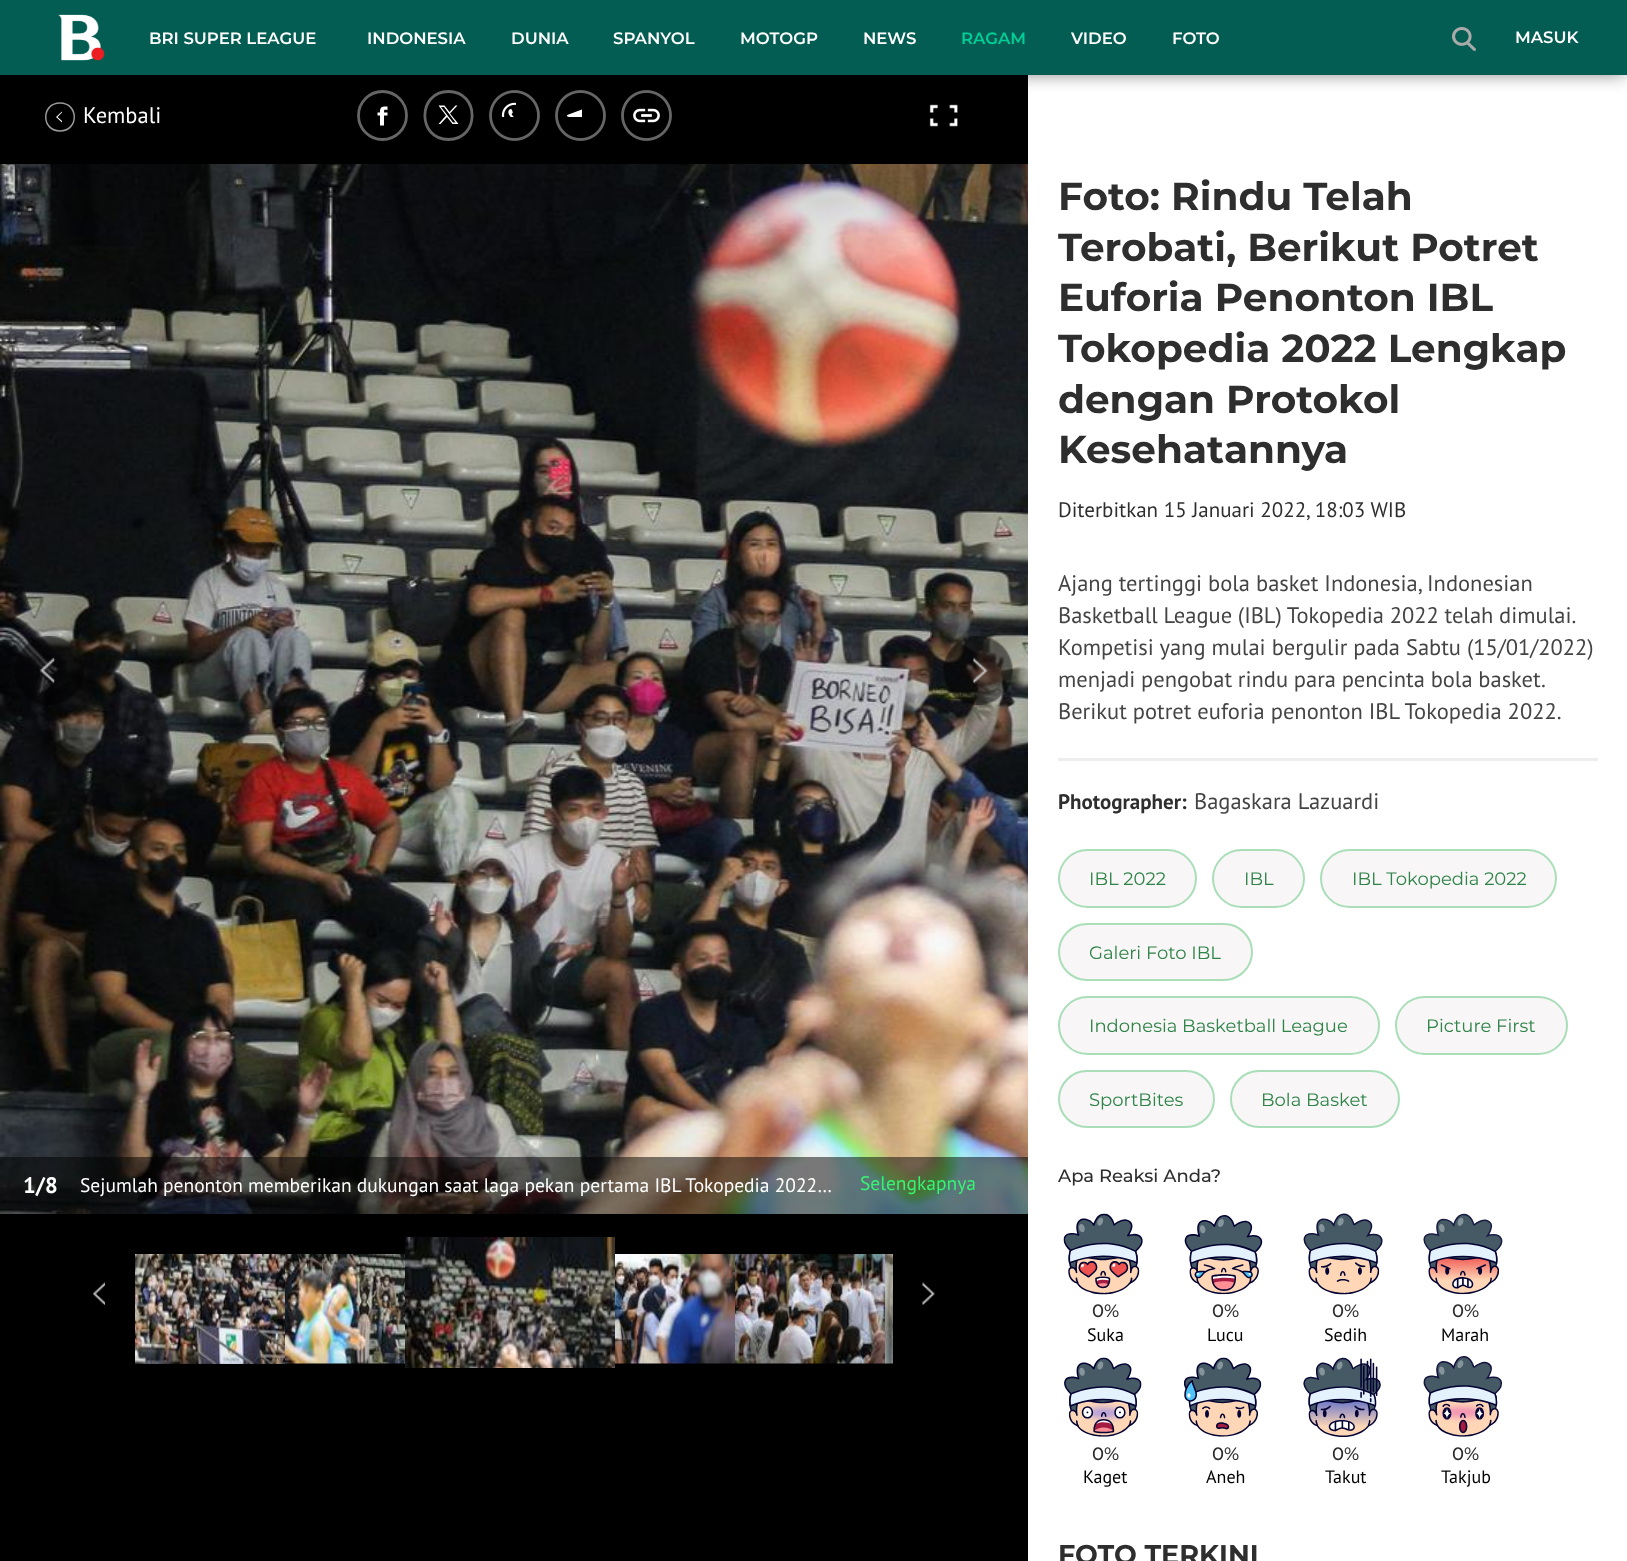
<svg xmlns="http://www.w3.org/2000/svg" xmlns:xlink="http://www.w3.org/1999/xlink" width="1627" height="1561" viewBox="0 0 1627 1561">
<style>
.cls-1{font:600 16.5px Montserrat;fill:#ffffff}
.cls-2{font:600 16.5px Montserrat;fill:#00ce97}
.cls-3{font:22.5px PT Sans;fill:#ffffff}
.cls-4{font:bold 22.5px PT Sans;fill:#ffffff}
.cls-5{font:19.5px PT Sans;fill:#ffffff}
.cls-6{font:19.5px PT Sans;fill:#37f372}
.cls-7{font:bold 39px Montserrat;fill:#2e2e2e}
.cls-8{font:21px PT Sans;fill:#2e2e2e}
.cls-9{font:22.5px PT Sans;fill:#444444}
.cls-10{font:bold 21px PT Sans;fill:#2e2e2e}
.cls-11{font:18px Montserrat;fill:#2d8348}
.cls-12{font:500 18px Montserrat;fill:#2e2e2e}
.cls-13{font:18px PT Sans;fill:#000000}
.cls-14{font:bold 27px Montserrat;fill:#2e2e2e}
</style>
<rect width="100%" height="100%" fill="#ffffff"/>
<rect fill="#000000" x="0" y="75" width="1028" height="1486"/>
<circle fill="none" stroke="#666666" stroke-width="2.8" cx="382.5" cy="115.5" r="24"/>
<path fill="none" stroke="#666666" stroke-width="2.8" d="M448.5 139.5C480 139.5 480 91.5 448.5 91.5C417 91.5 417 139.5 448.5 139.5Z"/>
<image xlink:href="image2.png" x="489" y="90" width="51" height="51"/>
<image xlink:href="image3.png" x="555" y="90" width="51" height="51"/>
<image xlink:href="image4.png" x="621" y="90" width="51" height="51"/>
<rect fill="#000000" fill-opacity="0.5" filter="blur(9px)" x="3" y="5" width="1622" height="69"/>
<rect fill="#035d53" x="0" y="0" width="1627" height="75"/>
<image xlink:href="image0.png" x="58" y="14" width="47" height="47"/>
<image xlink:href="image1.png" x="1452" y="27" width="24" height="24"/>
<path fill="none" stroke="#979797" stroke-width="1.5" d="M60 103C41 103 41 131 60 131C79 131 79 103 60 103Z"/>
<path fill="#ffffff" fill-rule="evenodd" d="M62 122.5V121L57.5 117L62 112.5V111.5L56 117Z"/>
<path fill="#ffffff" fill-rule="evenodd" d="M387.5 112.5H384C384 109 384.5 110 387.5 110V106.5C382 106.5 380 106 380 112.5H377.5V115.5H380V125.5H384V115.5H387.5Z"/>
<path fill="#ffffff" d="M438.5 105.5L446 115.5L438.5 124H440.5L447 117L452.5 124H458.5L450 113.5L457.5 105.5H455.5L449.5 112L444.5 105.5ZM441 107H444L455.5 122.5H453Z"/>
<image xlink:href="image5.png" x="929" y="104" width="29" height="23"/>
<image xlink:href="image8.png" x="0" y="164" width="1028" height="1050"/>
<image xlink:href="image6.png" x="15" y="636" width="69" height="69"/>
<image xlink:href="image7.png" x="943" y="636" width="70" height="69"/>
<rect fill="#000000" fill-opacity="0.5" x="0" y="1157" width="1028" height="57"/>
<image xlink:href="image9.png" x="93" y="1282" width="12" height="23"/>
<image xlink:href="image10.png" x="135" y="1254" width="150" height="110"/>
<image xlink:href="image11.png" x="285" y="1254" width="120" height="110"/>
<image xlink:href="image12.png" x="405" y="1237" width="210" height="131"/>
<image xlink:href="image13.png" x="615" y="1254" width="120" height="110"/>
<image xlink:href="image14.png" x="735" y="1254" width="150" height="110"/>
<image xlink:href="image15.png" x="885" y="1254" width="8" height="110"/>
<image xlink:href="image16.png" x="922" y="1282" width="13" height="23"/>
<rect fill="#eeeeee" x="1058" y="758" width="540" height="3"/>
<rect fill="#f8f6f6" stroke="#a9deb9" stroke-width="2" x="1059" y="850" width="137" height="57" rx="28.5"/>
<rect fill="#f8f6f6" stroke="#a9deb9" stroke-width="2" x="1213" y="850" width="91" height="57" rx="28.5"/>
<rect fill="#f8f6f6" stroke="#a9deb9" stroke-width="2" x="1321" y="850" width="235" height="57" rx="28.5"/>
<rect fill="#f8f6f6" stroke="#a9deb9" stroke-width="2" x="1059" y="924" width="193" height="56" rx="28"/>
<rect fill="#f8f6f6" stroke="#a9deb9" stroke-width="2" x="1059" y="997" width="320" height="57" rx="28.5"/>
<rect fill="#f8f6f6" stroke="#a9deb9" stroke-width="2" x="1396" y="997" width="171" height="57" rx="28.5"/>
<rect fill="#f8f6f6" stroke="#a9deb9" stroke-width="2" x="1059" y="1071" width="155" height="56" rx="28"/>
<rect fill="#f8f6f6" stroke="#a9deb9" stroke-width="2" x="1231" y="1071" width="168" height="56" rx="28"/>
<image xlink:href="image17.png" x="1063" y="1213" width="80" height="82"/>
<image xlink:href="image18.png" x="1184" y="1215" width="79" height="80"/>
<image xlink:href="image19.png" x="1303" y="1213" width="80" height="82"/>
<image xlink:href="image20.png" x="1423" y="1213" width="80" height="82"/>
<image xlink:href="image21.png" x="1064" y="1357" width="78" height="80"/>
<image xlink:href="image22.png" x="1184" y="1357" width="78" height="80"/>
<image xlink:href="image23.png" x="1303" y="1357" width="78" height="80"/>
<image xlink:href="image24.png" x="1423" y="1356" width="80" height="81"/>
<text class="cls-1" x="149" y="44">BRI SUPER LEAGUE</text>
<text class="cls-1" x="367" y="44">INDONESIA</text>
<text class="cls-1" x="511" y="44">DUNIA</text>
<text class="cls-1" x="613" y="44">SPANYOL</text>
<text class="cls-1" x="740" y="44">MOTOGP</text>
<text class="cls-1" x="863" y="44">NEWS</text>
<text class="cls-2" x="961" y="44">RAGAM</text>
<text class="cls-1" x="1071" y="44">VIDEO</text>
<text class="cls-1" x="1172" y="44">FOTO</text>
<text class="cls-1" x="1515" y="43">MASUK</text>
<text class="cls-3" x="83" y="123">Kembali</text>
<text class="cls-4" x="23" y="1193">1/8</text>
<text class="cls-5" x="80" y="1192">Sejumlah penonton memberikan dukungan saat laga pekan pertama IBL Tokopedia 2022…</text>
<text class="cls-6" x="860" y="1190">Selengkapnya</text>
<text class="cls-7"><tspan x="1058" y="210">Foto: Rindu Telah</tspan><tspan x="1058" y="261">Terobati, Berikut Potret</tspan><tspan x="1058" y="311">Euforia Penonton IBL</tspan><tspan x="1058" y="362">Tokopedia 2022 Lengkap</tspan><tspan x="1058" y="413">dengan Protokol</tspan><tspan x="1058" y="463">Kesehatannya</tspan></text>
<text class="cls-8" x="1058" y="517">Diterbitkan 15 Januari 2022, 18:03 WIB</text>
<text class="cls-9"><tspan x="1058" y="591">Ajang tertinggi bola basket Indonesia, Indonesian</tspan><tspan x="1058" y="623" word-spacing="-0.25">Basketball League (IBL) Tokopedia 2022 telah dimulai.</tspan><tspan x="1058" y="655">Kompetisi yang mulai bergulir pada Sabtu (15/01/2022)</tspan><tspan x="1058" y="687" word-spacing="-0.25">menjadi pengobat rindu para pencinta bola basket.</tspan><tspan x="1058" y="719">Berikut potret euforia penonton IBL Tokopedia 2022.</tspan></text>
<text class="cls-10" x="1058" y="809">Photographer:</text>
<text class="cls-9" x="1194" y="809">Bagaskara Lazuardi</text>
<text class="cls-11" x="1089" y="885">IBL 2022</text>
<text class="cls-11" x="1244" y="885">IBL</text>
<text class="cls-11" x="1352" y="885">IBL Tokopedia 2022</text>
<text class="cls-11" x="1089" y="959">Galeri Foto IBL</text>
<text class="cls-11" x="1089" y="1032">Indonesia Basketball League</text>
<text class="cls-11" x="1426" y="1032">Picture First</text>
<text class="cls-11" x="1089" y="1106">SportBites</text>
<text class="cls-11" x="1261" y="1106">Bola Basket</text>
<text class="cls-12" x="1058" y="1182">Apa Reaksi Anda?</text>
<text class="cls-12" x="1092" y="1317">0%</text>
<text class="cls-13" x="1087" y="1341">Suka</text>
<text class="cls-12" x="1212" y="1317">0%</text>
<text class="cls-13" x="1207" y="1341">Lucu</text>
<text class="cls-12" x="1332" y="1317">0%</text>
<text class="cls-13" x="1324" y="1341">Sedih</text>
<text class="cls-12" x="1452" y="1317">0%</text>
<text class="cls-13" x="1441" y="1341">Marah</text>
<text class="cls-12" x="1092" y="1460">0%</text>
<text class="cls-13" x="1083" y="1483">Kaget</text>
<text class="cls-12" x="1212" y="1460">0%</text>
<text class="cls-13" x="1206" y="1483">Aneh</text>
<text class="cls-12" x="1332" y="1460">0%</text>
<text class="cls-13" x="1325" y="1483">Takut</text>
<text class="cls-12" x="1452" y="1460">0%</text>
<text class="cls-13" x="1441" y="1483">Takjub</text>
<text class="cls-14" x="1058" y="1564">FOTO TERKINI</text>
</svg>
